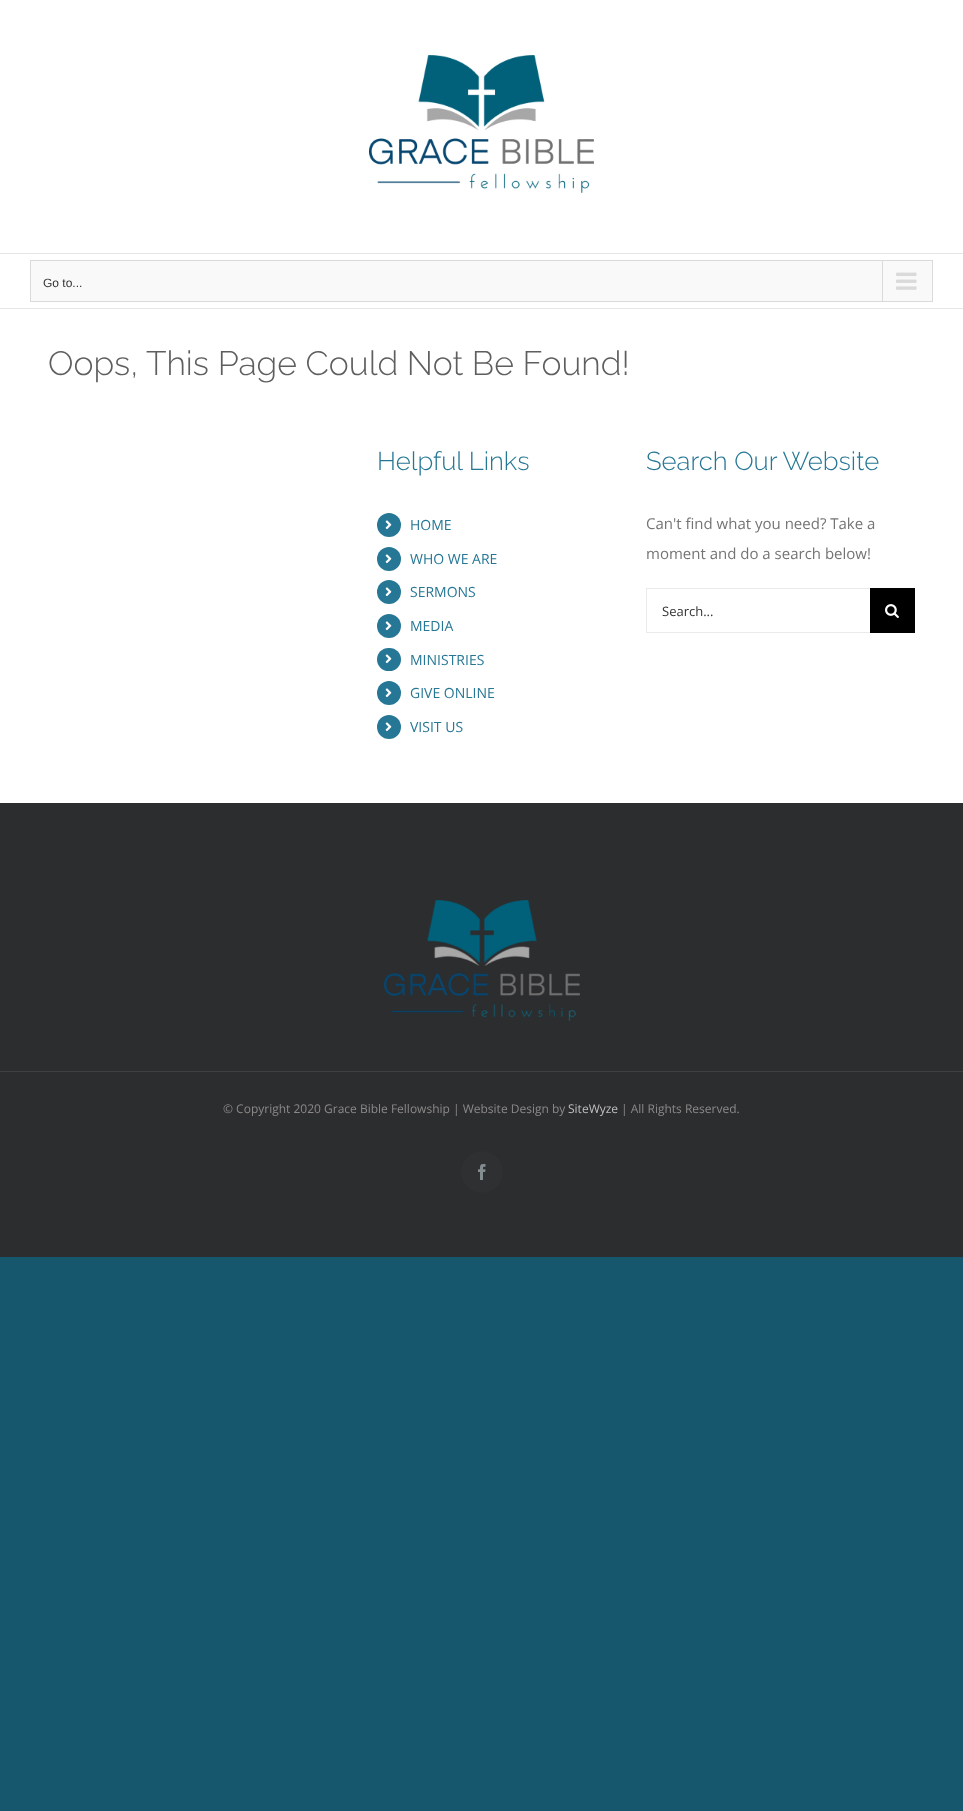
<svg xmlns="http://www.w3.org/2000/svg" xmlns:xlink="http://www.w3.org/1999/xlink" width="963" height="1811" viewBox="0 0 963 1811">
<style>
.cls-1{font:12px Liberation Sans;fill:#333333}
.cls-2{font:300 33.75px Raleway;fill:#5e5e5e}
.cls-3{font:300 25.75px Raleway;fill:#267795}
.cls-4{font:14px Open Sans;fill:#267795}
.cls-5{font:15px Open Sans;fill:#747474}
.cls-6{font:13px Open Sans;fill:#333333}
.cls-7{font:12px Open Sans;fill:#8c8989}
.cls-8{font:12px Open Sans;fill:#bfbfbf}
</style>
<rect width="100%" height="100%" fill="#17576d"/>
<rect fill="#ffffff" x="0" y="0" width="963" height="803"/>
<rect fill="#e5e5e5" x="0" y="253" width="963" height="1"/>
<image xlink:href="image0.png" x="369" y="55" width="225" height="138"/>
<rect fill="#e5e5e5" x="0" y="308" width="963" height="1"/>
<rect fill="#f9f9f9" stroke="#dadada" x="30.5" y="260.5" width="902" height="41"/>
<rect fill="#dadada" x="882" y="261" width="1" height="40"/>
<image xlink:href="image1.png" x="896" y="272" width="21" height="18"/>
<circle fill="#267795" cx="389" cy="525" r="12"/>
<image xlink:href="image2.png" x="385" y="520" width="7" height="10"/>
<circle fill="#267795" cx="389" cy="559" r="12"/>
<image xlink:href="image2.png" x="385" y="554" width="7" height="10"/>
<circle fill="#267795" cx="389" cy="592" r="12"/>
<image xlink:href="image2.png" x="385" y="587" width="7" height="10"/>
<circle fill="#267795" cx="389" cy="626" r="12"/>
<image xlink:href="image2.png" x="385" y="621" width="7" height="10"/>
<rect fill="#267795" x="377" y="648" width="24" height="23" rx="11.5"/>
<image xlink:href="image2.png" x="385" y="654" width="7" height="10"/>
<circle fill="#267795" cx="389" cy="693" r="12"/>
<image xlink:href="image2.png" x="385" y="688" width="7" height="10"/>
<circle fill="#267795" cx="389" cy="727" r="12"/>
<image xlink:href="image2.png" x="385" y="722" width="7" height="10"/>
<rect fill="#eaeaea" x="646" y="588" width="224" height="1"/>
<rect fill="#eaeaea" x="646" y="632" width="224" height="1"/>
<rect fill="#eaeaea" x="646" y="588" width="1" height="45"/>
<rect fill="#000000" x="870" y="588" width="45" height="45"/>
<image xlink:href="image3.png" x="885" y="604" width="14" height="14"/>
<rect fill="#2c2d2f" x="0" y="803" width="963" height="268"/>
<image xlink:href="image4.png" x="383" y="900" width="197" height="121"/>
<rect fill="#2c2d2f" x="0" y="1072" width="963" height="185"/>
<rect fill="#404042" x="0" y="1071" width="963" height="1"/>
<circle fill="#2f3032" cx="482" cy="1172" r="21"/>
<image xlink:href="image5.png" x="478" y="1164" width="8" height="16"/>
<text class="cls-1" x="43" y="287">Go to...</text>
<text class="cls-2" x="48" y="375">Oops, This Page Could Not Be Found!</text>
<text class="cls-3" x="377" y="470">Helpful Links</text>
<text class="cls-4" x="410" y="530">HOME</text>
<text class="cls-4" x="410" y="564">WHO WE ARE</text>
<text class="cls-4" x="410" y="597">SERMONS</text>
<text class="cls-4" x="410" y="631">MEDIA</text>
<text class="cls-4" x="410" y="665">MINISTRIES</text>
<text class="cls-4" x="410" y="698">GIVE ONLINE</text>
<text class="cls-4" x="410" y="732">VISIT US</text>
<text class="cls-3" x="646" y="470">Search Our Website</text>
<text class="cls-5" x="646" y="529">Can't find what you need? Take a</text>
<text class="cls-5" x="646" y="559">moment and do a search below!</text>
<text class="cls-6" x="662" y="616">Search...</text>
<text class="cls-7" x="223" y="1113">© Copyright 2020 Grace Bible Fellowship | Website Design by</text>
<text class="cls-8" x="568" y="1113">SiteWyze</text>
<text class="cls-7" x="621" y="1113">| All Rights Reserved.</text>
</svg>
